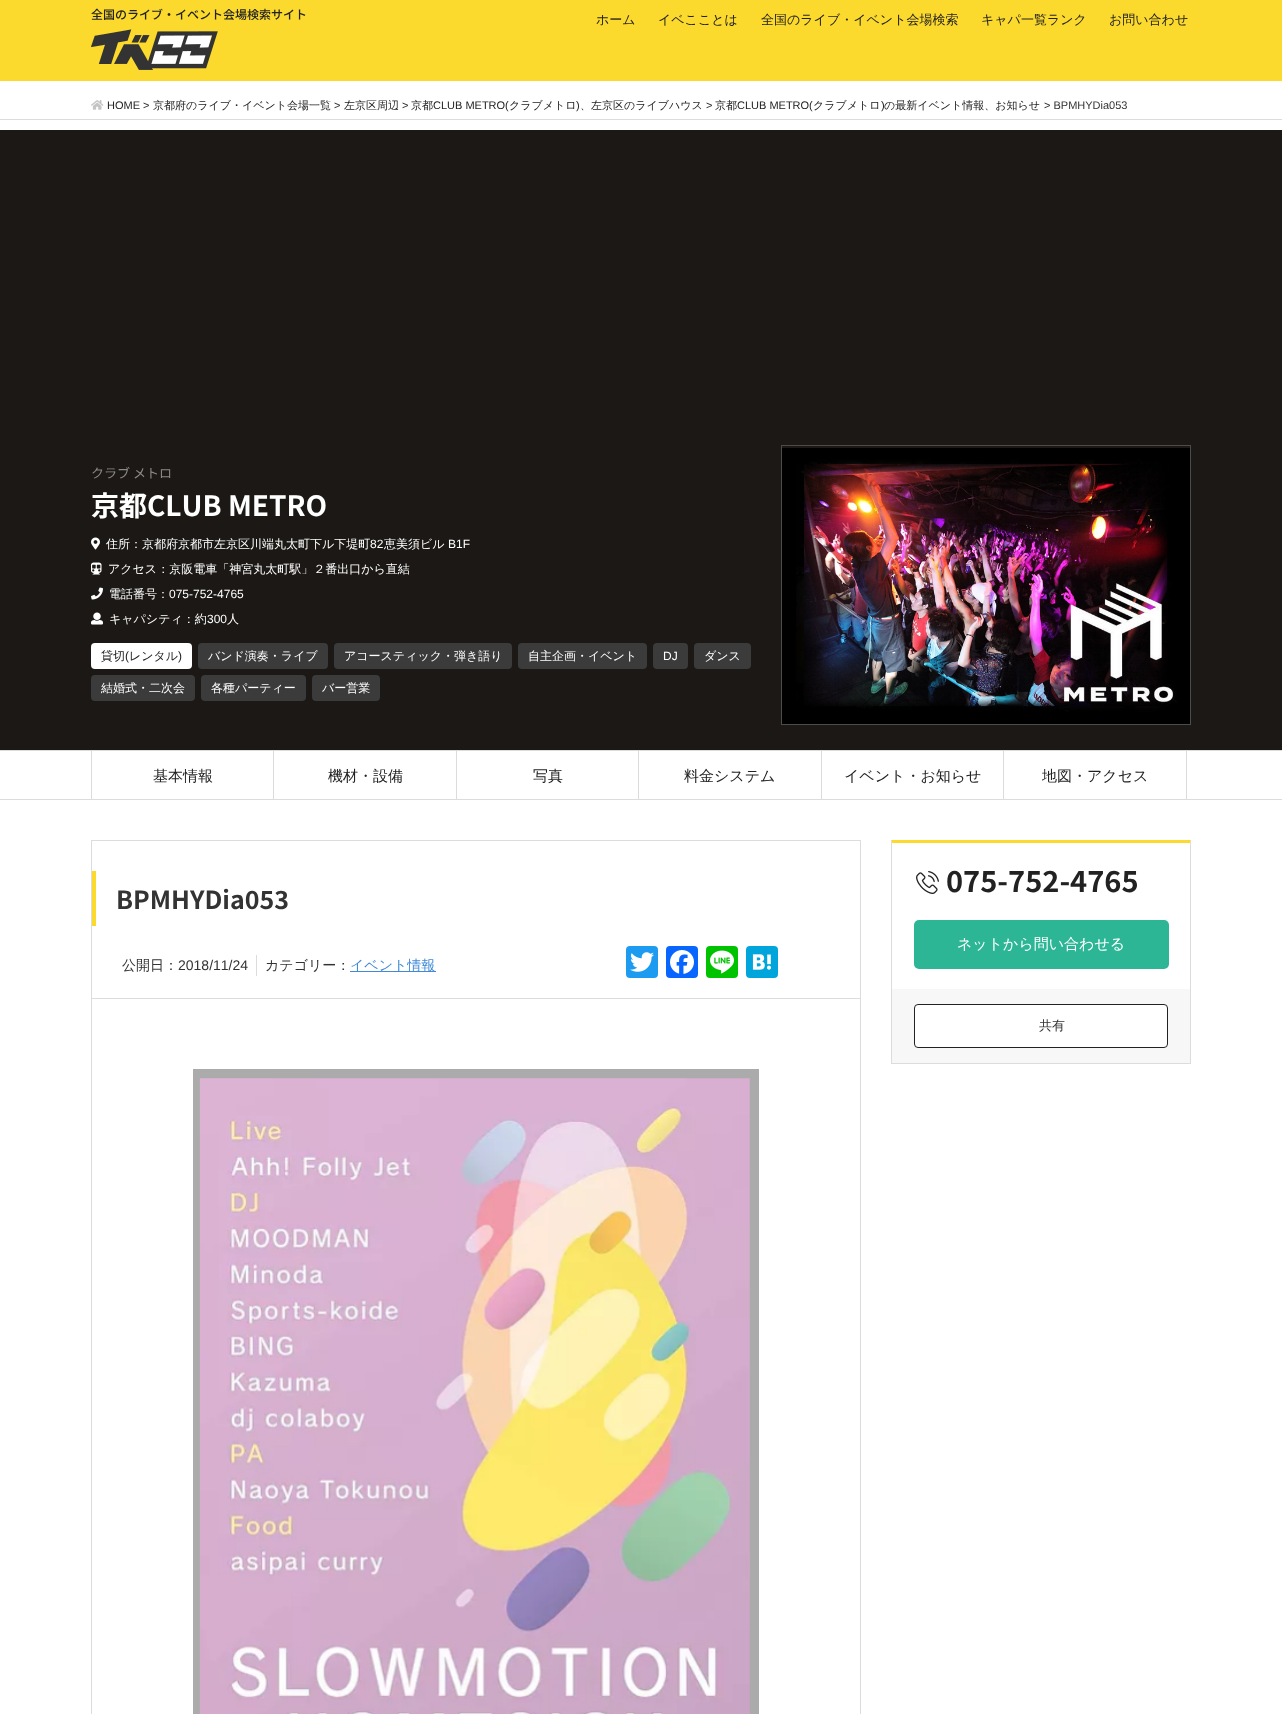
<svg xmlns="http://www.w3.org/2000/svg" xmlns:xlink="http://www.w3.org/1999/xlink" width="1282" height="1714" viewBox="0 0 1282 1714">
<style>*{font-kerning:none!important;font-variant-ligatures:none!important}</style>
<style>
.cls-1{font:500 12px Noto Sans JP;fill:#222222}
.cls-2{font:500 13px WenQuanYi Zen Hei;fill:#222222}
.cls-3{font:11px Liberation Sans;fill:#222222}
.cls-4{font:11px Liberation Sans;fill:#333333}
.cls-5{font:500 11px WenQuanYi Zen Hei;fill:#222222}
.cls-6{font:13px Noto Sans JP;fill:#8a8a8a}
.cls-7{font:bold 28px Noto Sans JP;fill:#ffffff}
.cls-8{font:500 12px WenQuanYi Zen Hei;fill:#ffffff}
.cls-9{font:12px Liberation Sans;fill:#ffffff}
.cls-10{font:500 12px WenQuanYi Zen Hei;fill:#222222}
.cls-11{font:12px Liberation Sans;fill:#222222}
.cls-12{font:500 15px WenQuanYi Zen Hei;fill:#222222}
.cls-13{font:bold 25px Noto Sans JP;fill:#333333}
.cls-14{font:500 14px WenQuanYi Zen Hei;fill:#333333}
.cls-15{font:14px Liberation Sans;fill:#333333}
.cls-16{font:500 14px WenQuanYi Zen Hei;fill:#408ad7}
.cls-17{font:bold 29px Noto Sans JP;fill:#222222}
.cls-18{font:500 15px WenQuanYi Zen Hei;fill:#ffffff}
.cls-19{font:500 13px WenQuanYi Zen Hei;fill:#333333}
</style>
<rect width="100%" height="100%" fill="#ffffff"/>
<rect fill="#fcd92d" x="0" y="0" width="1282" height="81"/>
<image xlink:href="image0.png" x="91" y="29" width="127" height="41"/>
<rect fill="#dcdcdc" x="0" y="119" width="1282" height="1"/>
<image xlink:href="image1.png" x="91" y="100" width="13" height="10"/>
<rect fill="#1b1815" x="0" y="130" width="1282" height="620"/>
<image xlink:href="image2.png" x="91" y="537" width="9" height="13"/>
<image xlink:href="image3.png" x="91" y="562" width="11" height="13"/>
<image xlink:href="image4.png" x="91" y="587" width="12" height="13"/>
<image xlink:href="image5.png" x="91" y="612" width="12" height="13"/>
<rect fill="#ffffff" x="91" y="643" width="101" height="26" rx="4"/>
<rect fill="#3b3b3b" x="198" y="643" width="130" height="26" rx="4"/>
<rect fill="#3b3b3b" x="334" y="643" width="178" height="26" rx="4"/>
<rect fill="#3b3b3b" x="518" y="643" width="129" height="26" rx="4"/>
<rect fill="#3b3b3b" x="653" y="643" width="35" height="26" rx="4"/>
<rect fill="#3b3b3b" x="694" y="643" width="57" height="26" rx="4"/>
<rect fill="#3b3b3b" x="91" y="675" width="104" height="26" rx="4"/>
<rect fill="#3b3b3b" x="201" y="675" width="105" height="26" rx="4"/>
<rect fill="#3b3b3b" x="312" y="675" width="68" height="26" rx="4"/>
<rect fill="none" stroke="#4c4c4c" x="781.5" y="445.5" width="409" height="279"/>
<image xlink:href="image6.png" x="782" y="448" width="408" height="276"/>
<rect fill="#dcdcdc" x="0" y="750" width="1282" height="1"/>
<rect fill="#dcdcdc" x="0" y="799" width="1282" height="1"/>
<rect fill="#dcdcdc" x="91" y="751" width="1" height="48"/>
<rect fill="#dcdcdc" x="273" y="751" width="1" height="48"/>
<rect fill="#dcdcdc" x="456" y="751" width="1" height="48"/>
<rect fill="#dcdcdc" x="638" y="751" width="1" height="48"/>
<rect fill="#dcdcdc" x="821" y="751" width="1" height="48"/>
<rect fill="#dcdcdc" x="1186" y="751" width="1" height="48"/>
<rect fill="#dcdcdc" x="1003" y="751" width="1" height="48"/>
<rect fill="none" stroke="#dcdcdc" x="91.5" y="840.5" width="769" height="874"/>
<rect fill="#fcd92d" x="92" y="871" width="4" height="55"/>
<rect fill="#dcdcdc" x="92" y="998" width="768" height="1"/>
<rect fill="#dcdcdc" x="256" y="955" width="1" height="21"/>
<rect fill="#408ad7" x="350" y="971" width="86" height="1"/>
<rect fill="#1d9bf0" x="626" y="946" width="32" height="32" rx="4"/>
<image xlink:href="image7.png" x="630" y="952" width="24" height="20"/>
<rect fill="#0866ff" x="666" y="946" width="32" height="32" rx="4"/>
<image xlink:href="image8.png" x="670" y="950" width="24" height="24"/>
<rect fill="#00c300" x="706" y="946" width="32" height="32" rx="4"/>
<image xlink:href="image9.png" x="710" y="950" width="24" height="24"/>
<rect fill="#00a6db" x="746" y="946" width="32" height="32" rx="4"/>
<image xlink:href="image10.png" x="752" y="954" width="19" height="16"/>
<image xlink:href="image11.png" x="193" y="1069" width="566" height="645"/>
<path fill="#fcd92d" d="M891 840H1191L1190 843H892Z"/>
<path fill="#dcdcdc" d="M1191 840V1064L1190 1063V843Z"/>
<rect fill="#dcdcdc" x="891" y="1063" width="300" height="1"/>
<path fill="#dcdcdc" d="M891 1064V840L892 843V1063Z"/>
<image xlink:href="image12.png" x="916" y="871" width="23" height="23"/>
<rect fill="#2cb696" x="914" y="920" width="255" height="49" rx="5"/>
<rect fill="#f7f7f7" x="892" y="989" width="298" height="74"/>
<rect fill="#ffffff" stroke="#222222" x="914.5" y="1004.5" width="253" height="43" rx="3.5"/>
<text class="cls-1" x="91" y="19">全国のライブ・イベント会場検索サイト</text>
<text class="cls-2" x="596" y="24">ホーム</text>
<text class="cls-2" x="658" y="24">イベこことは</text>
<text class="cls-2" x="761" y="24">全国のライブ・イベント会場検索</text>
<text class="cls-2" x="981" y="24">キャパ一覧ランク</text>
<text class="cls-2" x="1109" y="24">お問い合わせ</text>
<text class="cls-3" x="107" y="109">HOME</text>
<text class="cls-4" x="143" y="109">&gt;</text>
<text class="cls-5" x="153" y="109">京都府のライブ・イベント会場一覧</text>
<text class="cls-4" x="334" y="109">&gt;</text>
<text class="cls-5" x="344" y="109">左京区周辺</text>
<text class="cls-4" x="402" y="109">&gt;</text>
<text class="cls-5" x="411" y="109">京都</text>
<text class="cls-3" x="433" y="109">CLUB METRO(</text>
<text class="cls-5" x="509" y="109">クラブメトロ</text>
<text class="cls-3" x="576" y="109">)</text>
<text class="cls-5" x="580" y="109">、左京区のライブハウス</text>
<text class="cls-4" x="706" y="109">&gt;</text>
<text class="cls-5" x="715" y="109">京都</text>
<text class="cls-3" x="737" y="109">CLUB METRO(</text>
<text class="cls-5" x="813" y="109">クラブメトロ</text>
<text class="cls-3" x="881" y="109">)</text>
<text class="cls-5" x="884" y="109">の最新イベント情報、お知らせ</text>
<text class="cls-4" x="1044" y="109">&gt; BPMHYDia053</text>
<text class="cls-6" x="91" y="478">クラブ メトロ</text>
<text class="cls-7" x="91" y="516">京都CLUB METRO</text>
<text class="cls-8" x="106" y="548">住所：京都府京都市左京区川端丸太町下ル下堤町</text>
<text class="cls-9" x="370" y="548">82</text>
<text class="cls-8" x="384" y="548">恵美須ビル</text>
<text class="cls-9" x="448" y="548">B1F</text>
<text class="cls-8" x="108" y="573">アクセス：京阪電車「神宮丸太町駅」２番出口から直結</text>
<text class="cls-8" x="109" y="598">電話番号：</text>
<text class="cls-9" x="169" y="598">075-752-4765</text>
<text class="cls-8" x="109" y="623">キャパシティ：約</text>
<text class="cls-9" x="207" y="623">300</text>
<text class="cls-8" x="227" y="623">人</text>
<text class="cls-10" x="101" y="660">貸切</text>
<text class="cls-11" x="125" y="660">(</text>
<text class="cls-10" x="129" y="660">レンタル</text>
<text class="cls-11" x="178" y="660">)</text>
<text class="cls-8" x="208" y="660">バンド演奏・ライブ</text>
<text class="cls-8" x="344" y="660">アコースティック・弾き語り</text>
<text class="cls-8" x="528" y="660">自主企画・イベント</text>
<text class="cls-9" x="663" y="660">DJ</text>
<text class="cls-8" x="704" y="660">ダンス</text>
<text class="cls-8" x="101" y="692">結婚式・二次会</text>
<text class="cls-8" x="211" y="692">各種パーティー</text>
<text class="cls-8" x="322" y="692">バー営業</text>
<text class="cls-12" x="153" y="781">基本情報</text>
<text class="cls-12" x="328" y="781">機材・設備</text>
<text class="cls-12" x="533" y="781">写真</text>
<text class="cls-12" x="684" y="781">料金システム</text>
<text class="cls-12" x="844" y="781">イベント・お知らせ</text>
<text class="cls-12" x="1042" y="781">地図・アクセス</text>
<text class="cls-13" x="116" y="909">BPMHYDia053</text>
<text class="cls-14" x="122" y="970">公開日：</text>
<text class="cls-15" x="178" y="970">2018/11/24</text>
<text class="cls-14" x="265" y="970">カテゴリー：</text>
<text class="cls-16" x="350" y="970">イベント情報</text>
<text class="cls-17" x="946" y="892">075-752-4765</text>
<text class="cls-18" x="957" y="949">ネットから問い合わせる</text>
<text class="cls-19" x="1039" y="1030">共有</text>
</svg>
